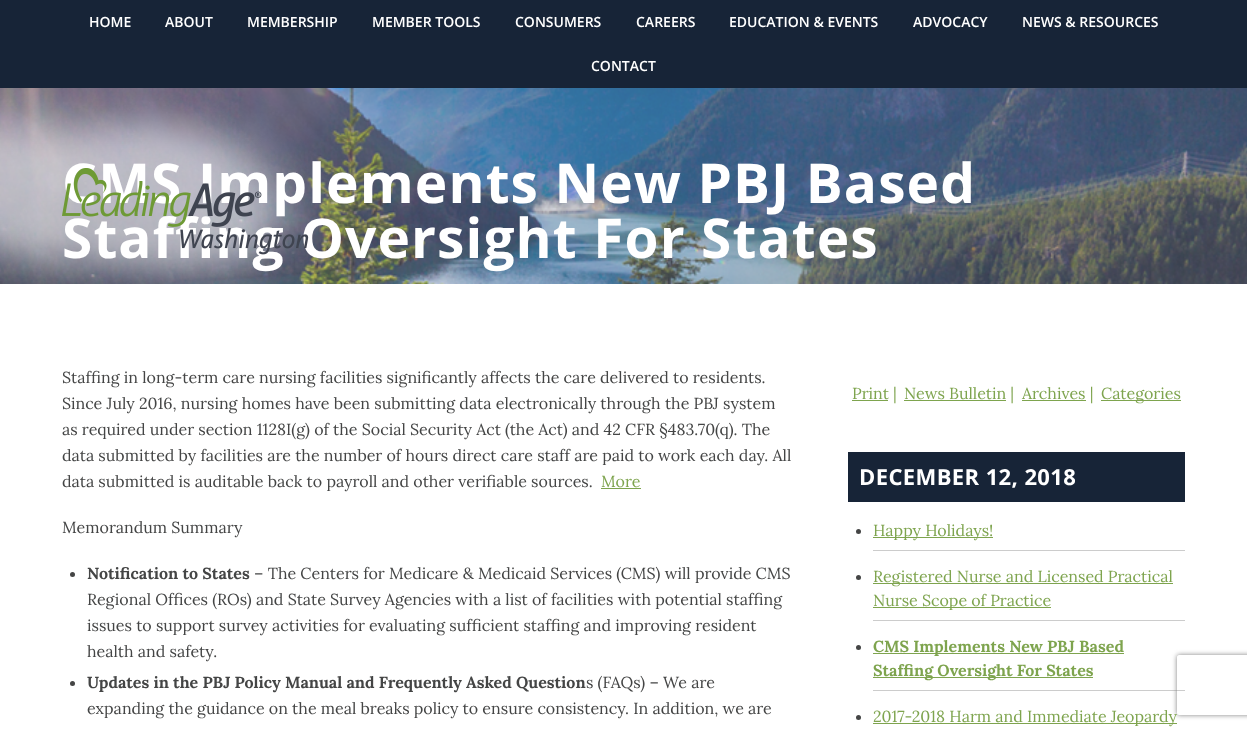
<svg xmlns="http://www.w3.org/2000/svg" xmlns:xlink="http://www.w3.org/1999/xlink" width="1247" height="729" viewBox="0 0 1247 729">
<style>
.cls-1{font:600 14px Open Sans;fill:#ffffff}
.cls-2{font:bold 55px Open Sans;letter-spacing:1.1px;fill:#ffffff}
.cls-3{font:16px Lora;fill:#444545}
.cls-4{font:16px Lora;fill:#7ea44e}
.cls-5{font:bold 16px Lora;fill:#444545}
.cls-6{font:bold 22px Open Sans;letter-spacing:0.4px;fill:#ffffff}
.cls-7{font:bold 16px Lora;fill:#7ea44e}
</style>
<defs>
<clipPath id="clip1"><path d="M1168 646H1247V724H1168ZM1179 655H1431C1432 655 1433 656 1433 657V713C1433 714 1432 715 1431 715H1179C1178 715 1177 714 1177 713V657C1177 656 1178 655 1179 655Z" clip-rule="evenodd"/></clipPath>
</defs>
<rect width="100%" height="100%" fill="#ffffff"/>
<rect fill="#172437" x="0" y="0" width="1247" height="88"/>
<image xlink:href="image2.png" x="0" y="88" width="1247" height="196"/>
<rect fill="#7ea44e" x="601" y="488" width="40" height="1"/>
<circle fill="#444545" cx="72.5" cy="574.5" r="2.5"/>
<circle fill="#444545" cx="72.5" cy="683.5" r="2.5"/>
<rect fill="#7ea44e" x="852" y="400" width="36" height="1"/>
<rect fill="#7ea44e" x="904" y="400" width="102" height="1"/>
<rect fill="#7ea44e" x="1022" y="400" width="64" height="1"/>
<rect fill="#7ea44e" x="1101" y="400" width="80" height="1"/>
<rect fill="#172437" x="848" y="452" width="337" height="50"/>
<rect fill="#cccccc" x="873" y="550" width="312" height="1"/>
<circle fill="#444545" cx="858.5" cy="531.5" r="2.5"/>
<rect fill="#7ea44e" x="873" y="537" width="120" height="1"/>
<rect fill="#cccccc" x="873" y="620" width="312" height="1"/>
<circle fill="#444545" cx="858.5" cy="577.5" r="2.5"/>
<rect fill="#7ea44e" x="873" y="583" width="300" height="1"/>
<rect fill="#7ea44e" x="873" y="607" width="178" height="1"/>
<rect fill="#cccccc" x="873" y="690" width="312" height="1"/>
<circle fill="#444545" cx="858.5" cy="647.5" r="2.5"/>
<rect fill="#7ea44e" x="873" y="653" width="251" height="1"/>
<rect fill="#7ea44e" x="873" y="677" width="220" height="1"/>
<circle fill="#444545" cx="858.5" cy="717.5" r="2.5"/>
<rect fill="#7ea44e" x="873" y="723" width="304" height="1"/>
<g clip-path="url(#clip1)">
<rect fill="#808080" filter="blur(2.5px)" x="1177" y="655" width="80" height="60" rx="2"/>
</g>
<text class="cls-1" x="89" y="27">HOME</text>
<text class="cls-1" x="165" y="27">ABOUT</text>
<text class="cls-1" x="247" y="27">MEMBERSHIP</text>
<text class="cls-1" x="372" y="27">MEMBER TOOLS</text>
<text class="cls-1" x="515" y="27">CONSUMERS</text>
<text class="cls-1" x="636" y="27">CAREERS</text>
<text class="cls-1" x="729" y="27">EDUCATION &amp; EVENTS</text>
<text class="cls-1" x="913" y="27">ADVOCACY</text>
<text class="cls-1" x="1022" y="27">NEWS &amp; RESOURCES</text>
<text class="cls-1" x="591" y="71">CONTACT</text>
<text class="cls-2"><tspan x="62" y="203">CMS Implements New PBJ Based</tspan><tspan x="62" y="258">Staffing Oversight For States</tspan></text>
<image xlink:href="image0.png" x="0" y="88" width="338" height="196"/>
<image xlink:href="image1.png" x="62" y="168" width="247" height="87"/>
<text class="cls-3"><tspan x="62" y="383">Staffing in long-term care nursing facilities significantly affects the care delivered to residents.</tspan><tspan x="62" y="409">Since July 2016, nursing homes have been submitting data electronically through the PBJ system</tspan><tspan x="62" y="435">as required under section 1128I(g) of the Social Security Act (the Act) and 42 CFR §483.70(q). The</tspan><tspan x="62" y="461">data submitted by facilities are the number of hours direct care staff are paid to work each day. All</tspan><tspan x="62" y="487">data submitted is auditable back to payroll and other verifiable sources.</tspan></text>
<text class="cls-4" x="601" y="487">More</text>
<text class="cls-3" x="62" y="533">Memorandum Summary</text>
<text class="cls-5" x="87" y="579">Notification to States</text>
<text class="cls-3" x="254" y="579">– The Centers for Medicare &amp; Medicaid Services (CMS) will provide CMS</text>
<text class="cls-3"><tspan x="87" y="605">Regional Offices (ROs) and State Survey Agencies with a list of facilities with potential staffing</tspan><tspan x="87" y="631">issues to support survey activities for evaluating sufficient staffing and improving resident</tspan><tspan x="87" y="657">health and safety.</tspan></text>
<text class="cls-5" x="87" y="688">Updates in the PBJ Policy Manual and Frequently Asked Question</text>
<text class="cls-3" x="586" y="688">s (FAQs) – We are</text>
<text class="cls-3" x="87" y="714">expanding the guidance on the meal breaks policy to ensure consistency. In addition, we are</text>
<text class="cls-4" x="852" y="399">Print |</text>
<text class="cls-4" x="904" y="399">News Bulletin |</text>
<text class="cls-4" x="1022" y="399">Archives |</text>
<text class="cls-4" x="1101" y="399">Categories</text>
<text class="cls-6" x="859" y="485">DECEMBER 12, 2018</text>
<text class="cls-4" x="873" y="536">Happy Holidays!</text>
<text class="cls-4"><tspan x="873" y="582">Registered Nurse and Licensed Practical</tspan><tspan x="873" y="606">Nurse Scope of Practice</tspan></text>
<text class="cls-7"><tspan x="873" y="652">CMS Implements New PBJ Based</tspan><tspan x="873" y="676">Staffing Oversight For States</tspan></text>
<text class="cls-4" x="873" y="722">2017-2018 Harm and Immediate Jeopardy</text>
</svg>
